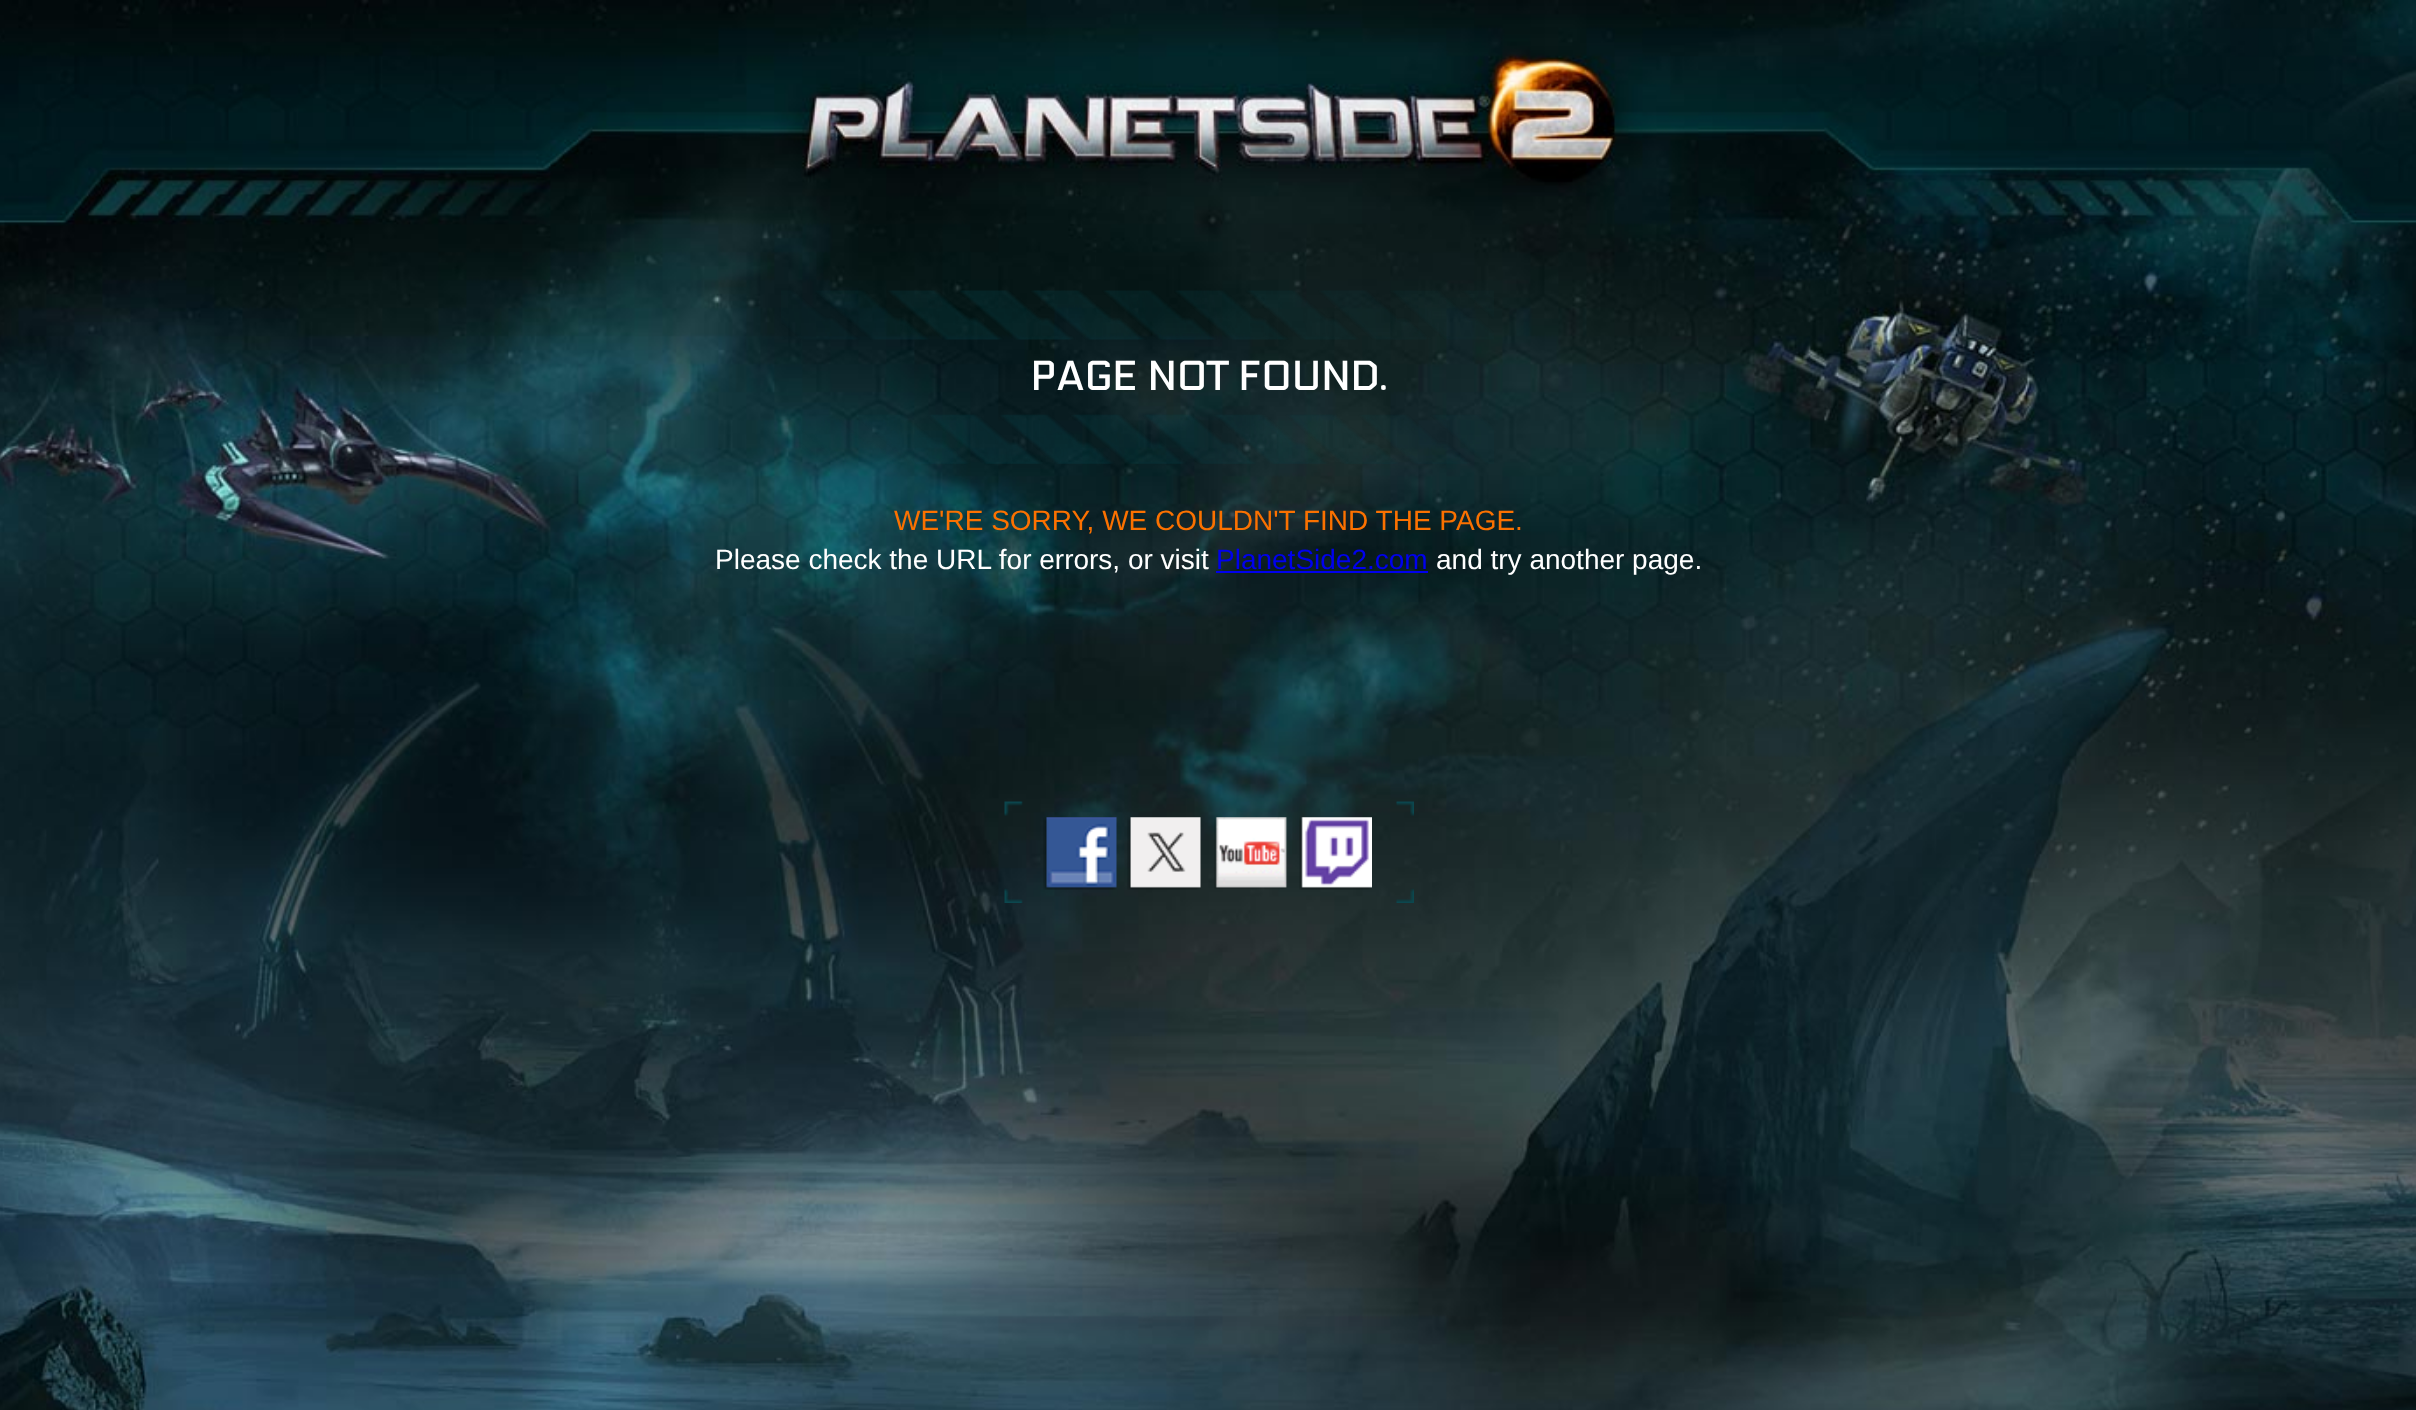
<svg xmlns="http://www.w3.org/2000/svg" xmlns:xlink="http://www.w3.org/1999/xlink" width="2416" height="1410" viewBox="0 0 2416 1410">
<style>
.cls-1{font:bold 40.25px Electrolize;fill:#ffffff}
.cls-2{font:28px Liberation Sans;fill:#fb7100}
.cls-3{font:28px Liberation Sans;fill:#ffffff}
.cls-4{font:28px Liberation Sans;fill:#0000ee}
</style>
<rect width="100%" height="100%" fill="#ffffff"/>
<image xlink:href="image0.png" x="0" y="0" width="2416" height="1410"/>
<image xlink:href="image1.png" x="781" y="290" width="713" height="174"/>
<rect fill="#0000ee" x="1216" y="571" width="212" height="2"/>
<image xlink:href="image2.png" x="1004" y="801" width="410" height="102"/>
<image xlink:href="image3.png" x="1043" y="817" width="74" height="73"/>
<image xlink:href="image4.png" x="1127" y="817" width="74" height="73"/>
<image xlink:href="image5.png" x="1214" y="817" width="73" height="72"/>
<image xlink:href="image6.png" x="1299" y="817" width="73" height="73"/>
<text class="cls-1" x="1030" y="390">PAGE NOT FOUND.</text>
<text class="cls-2" x="894" y="530">WE'RE SORRY, WE COULDN'T FIND THE PAGE.</text>
<text class="cls-3" x="715" y="569">Please check the URL for errors, or visit</text>
<text class="cls-4" x="1216" y="569">PlanetSide2.com</text>
<text class="cls-3" x="1436" y="569">and try another page.</text>
</svg>
